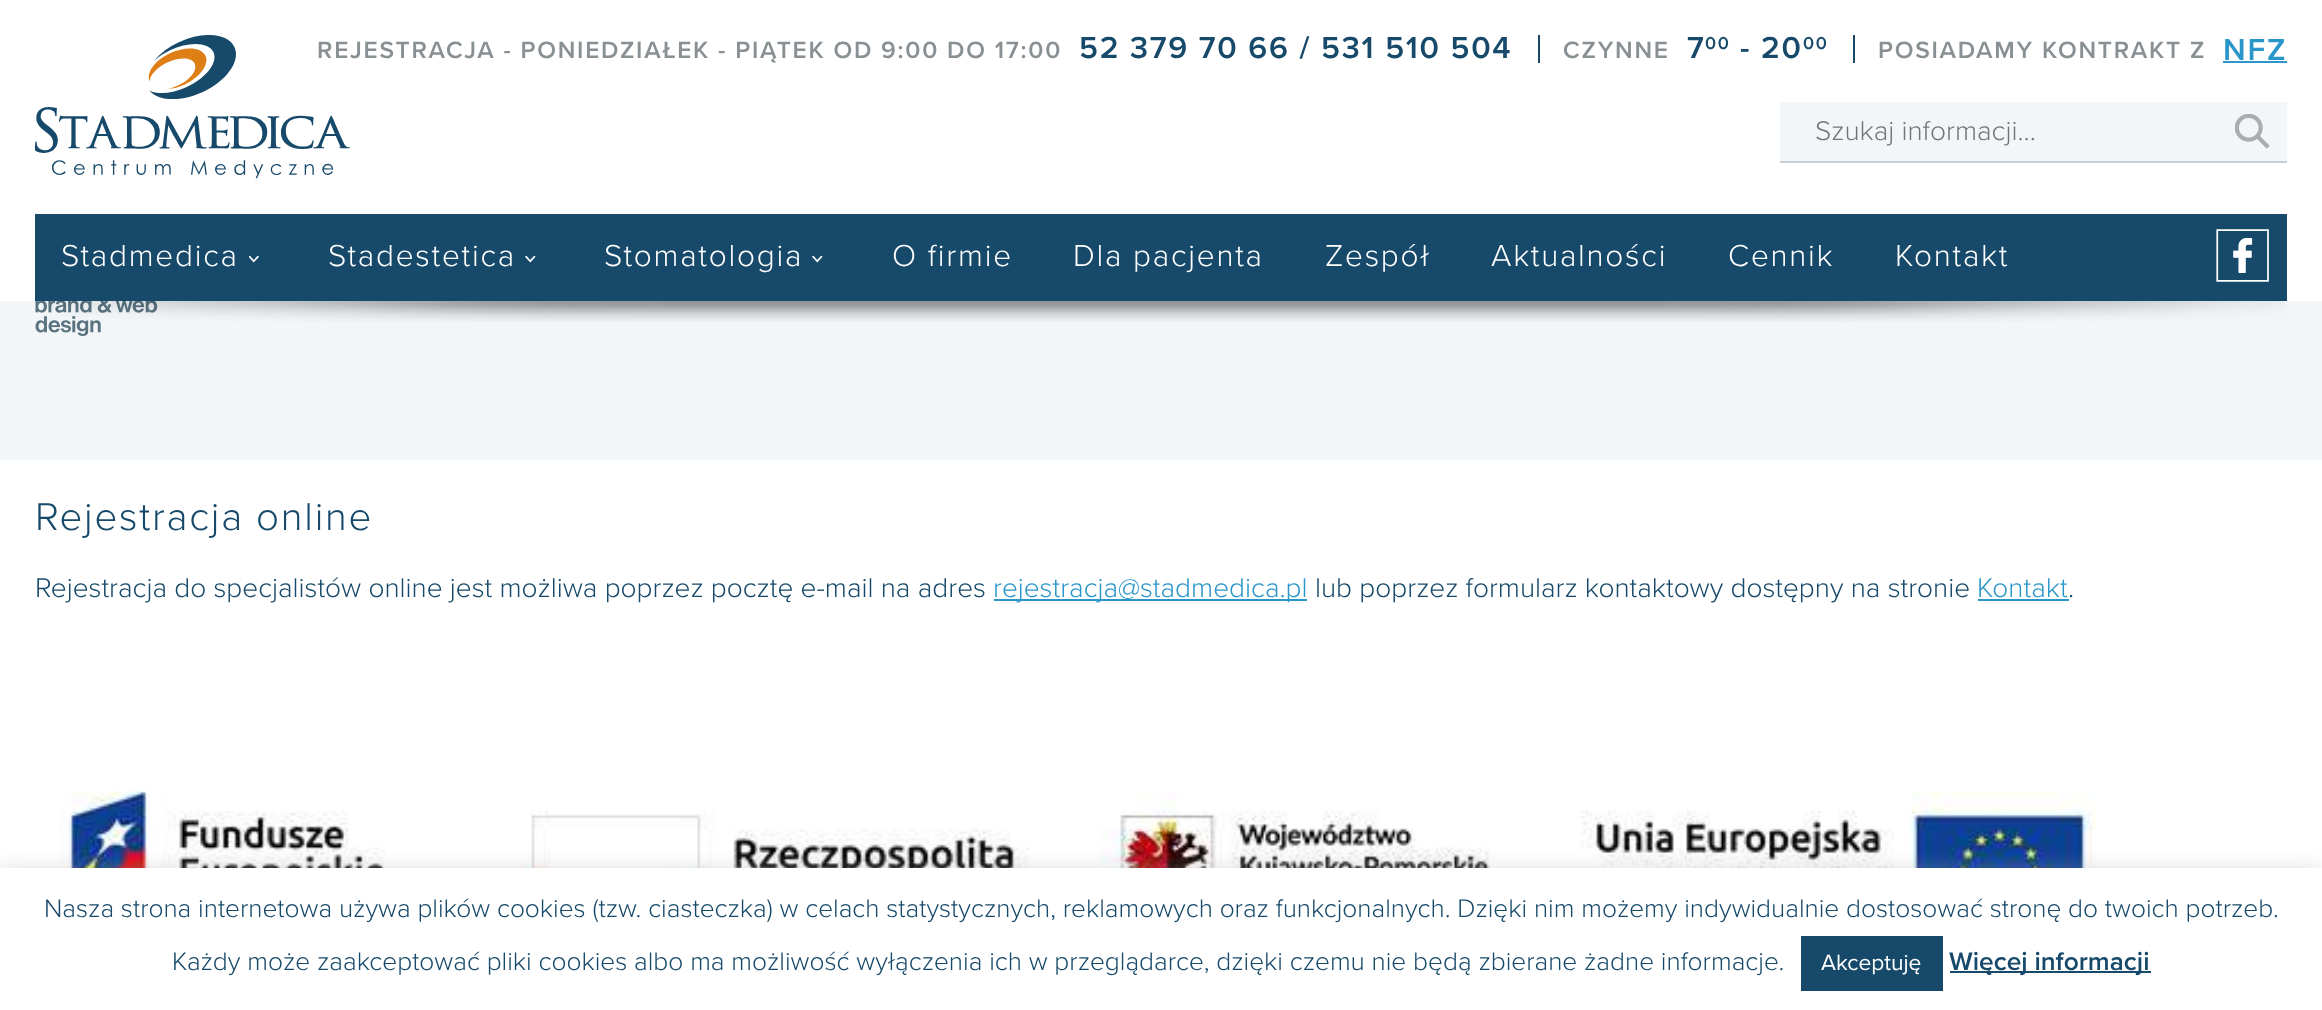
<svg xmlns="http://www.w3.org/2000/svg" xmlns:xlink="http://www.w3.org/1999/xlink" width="2322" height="1010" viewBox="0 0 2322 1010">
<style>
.cls-1{font:600 24.5px Proxima Nova;letter-spacing:1.75px;fill:#899094}
.cls-2{font:600 31.5px Proxima Nova;letter-spacing:1.75px;fill:#16496a}
.cls-3{font:600 18px Proxima Nova;letter-spacing:1.75px;fill:#16496a}
.cls-4{font:600 31.5px Proxima Nova;letter-spacing:1.75px;fill:#2b96c9}
.cls-5{font:300 28px Proxima Nova;fill:#757575}
.cls-6{font:300 31.5px Proxima Nova;letter-spacing:1.75px;fill:#ffffff}
.cls-7{font:300 40.25px Proxima Nova;letter-spacing:1.75px;fill:#16496a}
.cls-8{font:300 28px Proxima Nova;fill:#16496a}
.cls-9{font:300 28px Proxima Nova;fill:#2b96c9}
.cls-10{font:300 26.25px Proxima Nova;fill:#16496a}
.cls-11{font:22.75px Proxima Nova;fill:#ffffff}
.cls-12{font:600 26.25px Proxima Nova;fill:#16496a}
</style>
<rect width="100%" height="100%" fill="#ffffff"/>
<image xlink:href="image0.png" x="35" y="35" width="315" height="144"/>
<rect fill="#16496a" x="1538" y="35" width="2" height="28"/>
<rect fill="#16496a" x="1853" y="35" width="2" height="28"/>
<rect fill="#2b96c9" x="2223" y="61" width="64" height="2"/>
<rect fill="#f3f6f9" x="1780" y="102" width="507" height="59"/>
<rect fill="#c6cfd4" x="1780" y="161" width="507" height="2"/>
<image xlink:href="image1.png" x="2235" y="114" width="35" height="35"/>
<rect fill="#16496a" x="35" y="214" width="2252" height="87"/>
<image xlink:href="image2.png" x="249" y="256" width="10" height="7"/>
<image xlink:href="image3.png" x="525" y="256" width="11" height="7"/>
<image xlink:href="image3.png" x="812" y="256" width="11" height="7"/>
<image xlink:href="image4.png" x="2216" y="229" width="53" height="53"/>
<rect fill="#f3f6f9" x="0" y="301" width="2322" height="159"/>
<image xlink:href="image6.png" x="35" y="301" width="123" height="35"/>
<image xlink:href="image5.png" x="43" y="301" width="2243" height="21"/>
<rect fill="#2b96c9" x="994" y="599" width="313" height="2"/>
<rect fill="#2b96c9" x="1978" y="599" width="91" height="2"/>
<image xlink:href="image7.png" x="59" y="790" width="2038" height="78"/>
<rect fill="#acabab" fill-opacity="0.3" filter="blur(9px)" x="0" y="866" width="2322" height="144"/>
<rect fill="#ffffff" x="0" y="868" width="2322" height="142"/>
<rect fill="#16496a" x="1801" y="936" width="142" height="55"/>
<rect fill="#16496a" x="1950" y="971" width="201" height="2"/>
<text class="cls-1" x="317" y="58">REJESTRACJA - PONIEDZIAŁEK - PIĄTEK OD 9:00 DO 17:00</text>
<text class="cls-2" x="1079" y="58">52 379 70 66 / 531 510 504</text>
<text class="cls-1" x="1563" y="58">CZYNNE</text>
<text class="cls-2" x="1687" y="58">7</text>
<text class="cls-3" x="1705" y="49">00</text>
<text class="cls-2" x="1740" y="58">- 20</text>
<text class="cls-3" x="1803" y="49">00</text>
<text class="cls-1" x="1878" y="58">POSIADAMY KONTRAKT Z</text>
<text class="cls-4" x="2223" y="60">NFZ</text>
<text class="cls-5" x="1815" y="140">Szukaj informacji...</text>
<text class="cls-6" x="61" y="266">Stadmedica</text>
<text class="cls-6" x="328" y="266">Stadestetica</text>
<text class="cls-6" x="604" y="266">Stomatologia</text>
<text class="cls-6" x="892" y="266">O firmie</text>
<text class="cls-6" x="1073" y="266">Dla pacjenta</text>
<text class="cls-6" x="1325" y="266">Zespół</text>
<text class="cls-6" x="1491" y="266">Aktualności</text>
<text class="cls-6" x="1728" y="266">Cennik</text>
<text class="cls-6" x="1895" y="266">Kontakt</text>
<text class="cls-7" x="35" y="530">Rejestracja online</text>
<text class="cls-8" x="35" y="597">Rejestracja do specjalistów online jest możliwa poprzez pocztę e-mail na adres</text>
<text class="cls-9" x="993" y="597">rejestracja@stadmedica.pl</text>
<text class="cls-8" x="1315" y="597">lub poprzez formularz kontaktowy dostępny na stronie</text>
<text class="cls-9" x="1977" y="597">Kontakt</text>
<text class="cls-8" x="2068" y="597">.</text>
<text class="cls-10" x="44" y="917">Nasza strona internetowa używa plików cookies (tzw. ciasteczka) w celach statystycznych, reklamowych oraz funkcjonalnych. Dzięki nim możemy indywidualnie dostosować stronę do twoich potrzeb.</text>
<text class="cls-10" x="172" y="970">Każdy może zaakceptować pliki cookies albo ma możliwość wyłączenia ich w przeglądarce, dzięki czemu nie będą zbierane żadne informacje.</text>
<text class="cls-11" x="1821" y="970">Akceptuję</text>
<text class="cls-12" x="1949" y="970">Więcej informacji</text>
</svg>
